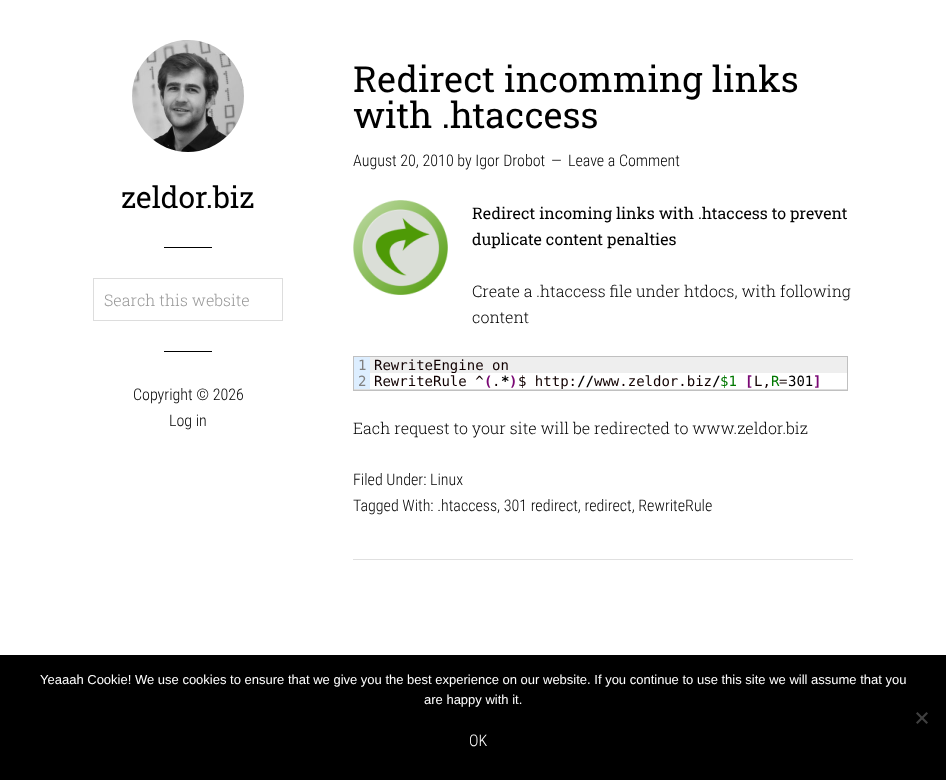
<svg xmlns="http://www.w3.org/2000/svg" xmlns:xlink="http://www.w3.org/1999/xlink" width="946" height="780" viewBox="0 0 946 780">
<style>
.cls-1{font:30px Roboto Slab;fill:#000000}
.cls-2{font:300 16px Roboto Slab;fill:#999999}
.cls-3{font:300 16px Roboto Condensed;fill:#000000}
.cls-4{font:36px Roboto Slab;fill:#000000}
.cls-5{font:16px Roboto Slab;fill:#000000}
.cls-6{font:300 16px Roboto Slab;fill:#000000}
.cls-7{font:14px DejaVu Sans Mono;fill:#808080}
.cls-8{font:14px DejaVu Sans Mono;fill:#110000}
.cls-9{font:bold 14px DejaVu Sans Mono;fill:#7a0874}
.cls-10{font:bold 14px DejaVu Sans Mono;fill:#000000}
.cls-11{font:14px DejaVu Sans Mono;fill:#007800}
.cls-12{font:14px DejaVu Sans Mono;fill:#000000}
.cls-13{font:13px Liberation Sans;fill:#ffffff}
.cls-14{font:300 16px Roboto Condensed;fill:#ffffff}
</style>
<rect width="100%" height="100%" fill="#ffffff"/>
<image xlink:href="image0.png" x="132" y="40" width="112" height="112"/>
<rect fill="#000000" x="164" y="247" width="48" height="1"/>
<rect fill="none" stroke="#dddddd" x="93.5" y="278.5" width="189" height="42"/>
<rect fill="#000000" x="164" y="351" width="48" height="1"/>
<rect fill="#e0e0e0" x="353" y="559" width="500" height="1"/>
<image xlink:href="image1.png" x="353" y="200" width="95" height="95"/>
<rect fill="none" stroke="#c0c0c0" x="353.5" y="356.5" width="494" height="34"/>
<rect fill="#dddddd" x="354" y="389" width="493" height="1"/>
<rect fill="#ddeeff" x="354" y="357" width="16" height="32"/>
<rect fill="#eeeeee" x="370" y="357" width="477" height="16"/>
<rect fill="#000000" x="0" y="655" width="946" height="125"/>
<path fill="#404040" d="M926.5 712L928 713.5L917.5 724L916 722.5Z"/>
<path fill="#404040" d="M916 713.5L917.5 712L928 722.5L926.5 724Z"/>
<text class="cls-1" x="121" y="208">zeldor.biz</text>
<text class="cls-2" x="104" y="306">Search this website</text>
<text class="cls-3" x="133" y="400">Copyright © 2026</text>
<text class="cls-3" x="169" y="426">Log in</text>
<text class="cls-4"><tspan x="353" y="92">Redirect incomming links</tspan><tspan x="353" y="128">with .htaccess</tspan></text>
<text class="cls-3" x="353" y="166">August 20, 2010 by Igor Drobot</text>
<text class="cls-3" x="551" y="166">—</text>
<text class="cls-3" x="568" y="166">Leave a Comment</text>
<text class="cls-5"><tspan x="472" y="219">Redirect incoming links with .htaccess to prevent</tspan><tspan x="472" y="245">duplicate content penalties</tspan></text>
<text class="cls-6"><tspan x="472" y="297">Create a .htaccess file under htdocs, with following</tspan><tspan x="472" y="323">content</tspan></text>
<text class="cls-7"><tspan x="358" y="370">1</tspan><tspan x="358" y="386">2</tspan></text>
<text class="cls-8"><tspan x="374" y="370">RewriteEngine on</tspan><tspan x="374" y="386">RewriteRule ^ .</tspan></text>
<text class="cls-9" x="484" y="386">(</text>
<text class="cls-10" x="501" y="386">*</text>
<text class="cls-9" x="509" y="386">)</text>
<text class="cls-8" x="518" y="386">$ http:</text>
<text class="cls-10" x="577" y="386">//</text>
<text class="cls-8" x="594" y="386">www.zeldor.biz</text>
<text class="cls-10" x="712" y="386">/</text>
<text class="cls-11" x="720" y="386">$1</text>
<text class="cls-9" x="745" y="386">[</text>
<text class="cls-8" x="754" y="386">L,</text>
<text class="cls-11" x="771" y="386">R</text>
<text class="cls-8" x="779" y="386">=</text>
<text class="cls-12" x="788" y="386">301</text>
<text class="cls-9" x="813" y="386">]</text>
<text class="cls-6" x="353" y="434">Each request to your site will be redirected to www.zeldor.biz</text>
<text class="cls-3"><tspan x="353" y="485">Filed Under: Linux</tspan><tspan x="353" y="511">Tagged With: .htaccess, 301 redirect, redirect, RewriteRule</tspan></text>
<text class="cls-13" x="40" y="684">Yeaaah Cookie! We use cookies to ensure that we give you the best experience on our website. If you continue to use this site we will assume that you</text>
<text class="cls-13" x="424" y="704">are happy with it.</text>
<text class="cls-14" x="469" y="746">OK</text>
</svg>
